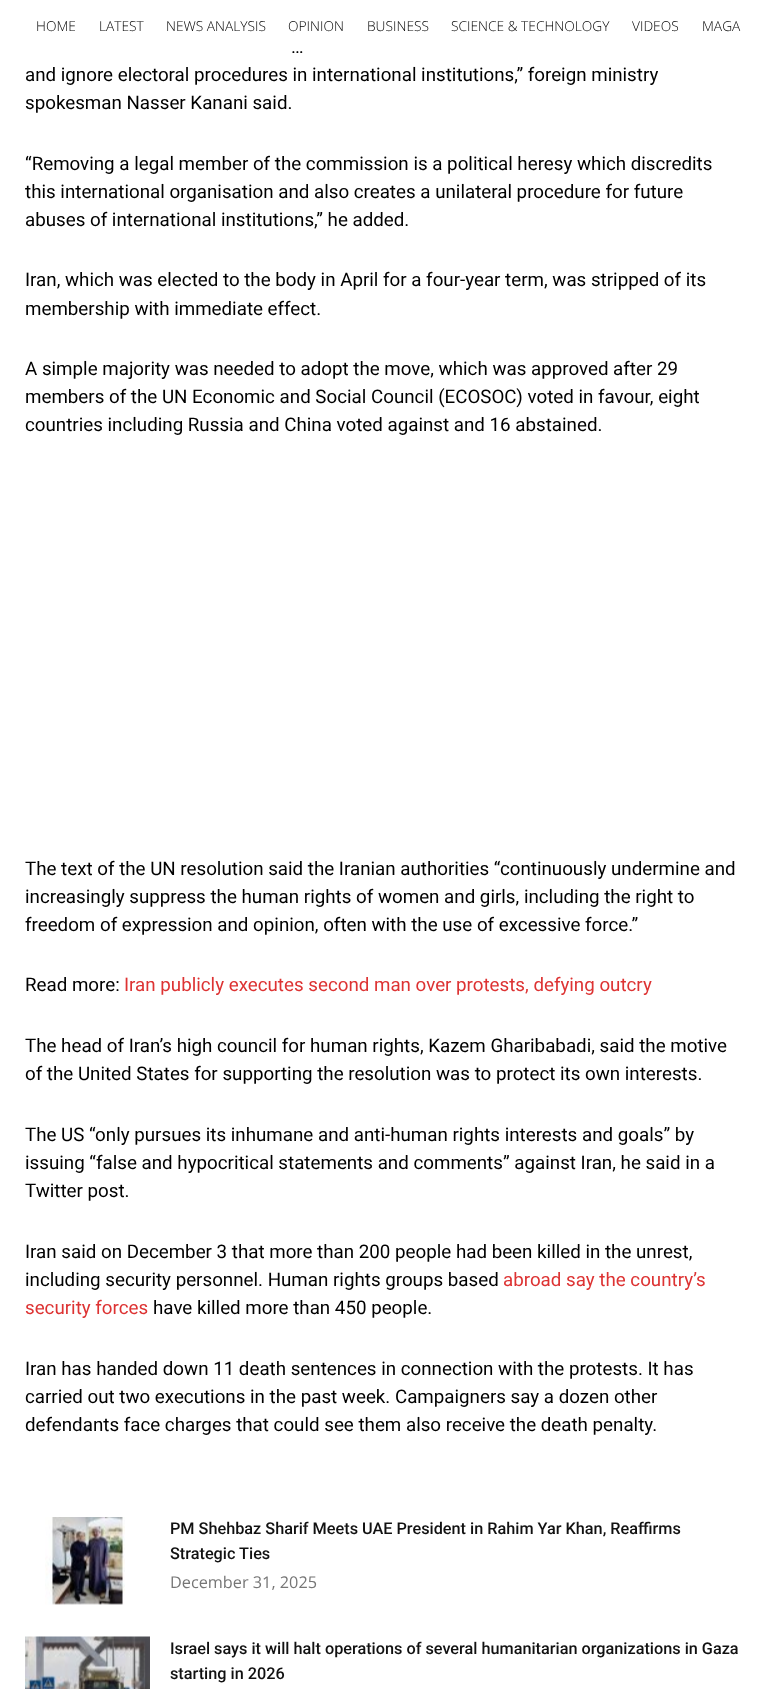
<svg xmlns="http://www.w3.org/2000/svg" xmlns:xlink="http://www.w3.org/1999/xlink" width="765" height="1689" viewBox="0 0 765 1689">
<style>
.cls-1{font:300 13.75px Open Sans;fill:#000000}
.cls-2{font:18.75px Roboto;fill:#000000}
.cls-3{font:18.75px Roboto;fill:#dd3333}
.cls-4{font:500 16.25px Roboto;fill:#111111}
.cls-5{font:16.25px Open Sans;fill:#767676}
</style>
<rect width="100%" height="100%" fill="#ffffff"/>
<image xlink:href="image0.png" x="45" y="1517" width="80" height="88"/>
<image xlink:href="image1.png" x="25" y="1636" width="125" height="53"/>
<text class="cls-1" x="36" y="31">HOME</text>
<text class="cls-1" x="99" y="31">LATEST</text>
<text class="cls-1" x="166" y="31">NEWS ANALYSIS</text>
<text class="cls-1" x="288" y="31">OPINION</text>
<text class="cls-1" x="367" y="31">BUSINESS</text>
<text class="cls-1" x="451" y="31">SCIENCE &amp; TECHNOLOGY</text>
<text class="cls-1" x="632" y="31">VIDEOS</text>
<text class="cls-1" x="702" y="31">MAGA</text>
<text class="cls-2" x="291" y="53">…</text>
<text class="cls-2"><tspan x="25" y="81">and ignore electoral procedures in international institutions,” foreign ministry</tspan><tspan x="25" y="109">spokesman Nasser Kanani said.</tspan></text>
<text class="cls-2"><tspan x="25" y="170">“Removing a legal member of the commission is a political heresy which discredits</tspan><tspan x="25" y="198">this international organisation and also creates a unilateral procedure for future</tspan><tspan x="25" y="226">abuses of international institutions,” he added.</tspan></text>
<text class="cls-2"><tspan x="25" y="286">Iran, which was elected to the body in April for a four-year term, was stripped of its</tspan><tspan x="25" y="315">membership with immediate effect.</tspan></text>
<text class="cls-2"><tspan x="25" y="375">A simple majority was needed to adopt the move, which was approved after 29</tspan><tspan x="25" y="403">members of the UN Economic and Social Council (ECOSOC) voted in favour, eight</tspan><tspan x="25" y="431">countries including Russia and China voted against and 16 abstained.</tspan></text>
<text class="cls-2"><tspan x="25" y="875">The text of the UN resolution said the Iranian authorities “continuously undermine and</tspan><tspan x="25" y="903">increasingly suppress the human rights of women and girls, including the right to</tspan><tspan x="25" y="931">freedom of expression and opinion, often with the use of excessive force.”</tspan></text>
<text class="cls-2" x="25" y="991">Read more:</text>
<text class="cls-3" x="124" y="991">Iran publicly executes second man over protests, defying outcry</text>
<text class="cls-2"><tspan x="25" y="1052">The head of Iran’s high council for human rights, Kazem Gharibabadi, said the motive</tspan><tspan x="25" y="1080">of the United States for supporting the resolution was to protect its own interests.</tspan></text>
<text class="cls-2"><tspan x="25" y="1141">The US “only pursues its inhumane and anti-human rights interests and goals” by</tspan><tspan x="25" y="1169">issuing “false and hypocritical statements and comments” against Iran, he said in a</tspan><tspan x="25" y="1197">Twitter post.</tspan></text>
<text class="cls-2"><tspan x="25" y="1258">Iran said on December 3 that more than 200 people had been killed in the unrest,</tspan><tspan x="25" y="1286">including security personnel. Human rights groups based</tspan></text>
<text class="cls-3" x="503" y="1286">abroad say the country’s</text>
<text class="cls-3" x="25" y="1314">security forces</text>
<text class="cls-2" x="153" y="1314">have killed more than 450 people.</text>
<text class="cls-2"><tspan x="25" y="1375">Iran has handed down 11 death sentences in connection with the protests. It has</tspan><tspan x="25" y="1403">carried out two executions in the past week. Campaigners say a dozen other</tspan><tspan x="25" y="1431">defendants face charges that could see them also receive the death penalty.</tspan></text>
<text class="cls-4"><tspan x="170" y="1534">PM Shehbaz Sharif Meets UAE President in Rahim Yar Khan, Reaffirms</tspan><tspan x="170" y="1559">Strategic Ties</tspan></text>
<text class="cls-5" x="170" y="1588">December 31, 2025</text>
<text class="cls-4"><tspan x="170" y="1654">Israel says it will halt operations of several humanitarian organizations in Gaza</tspan><tspan x="170" y="1679">starting in 2026</tspan></text>
</svg>
